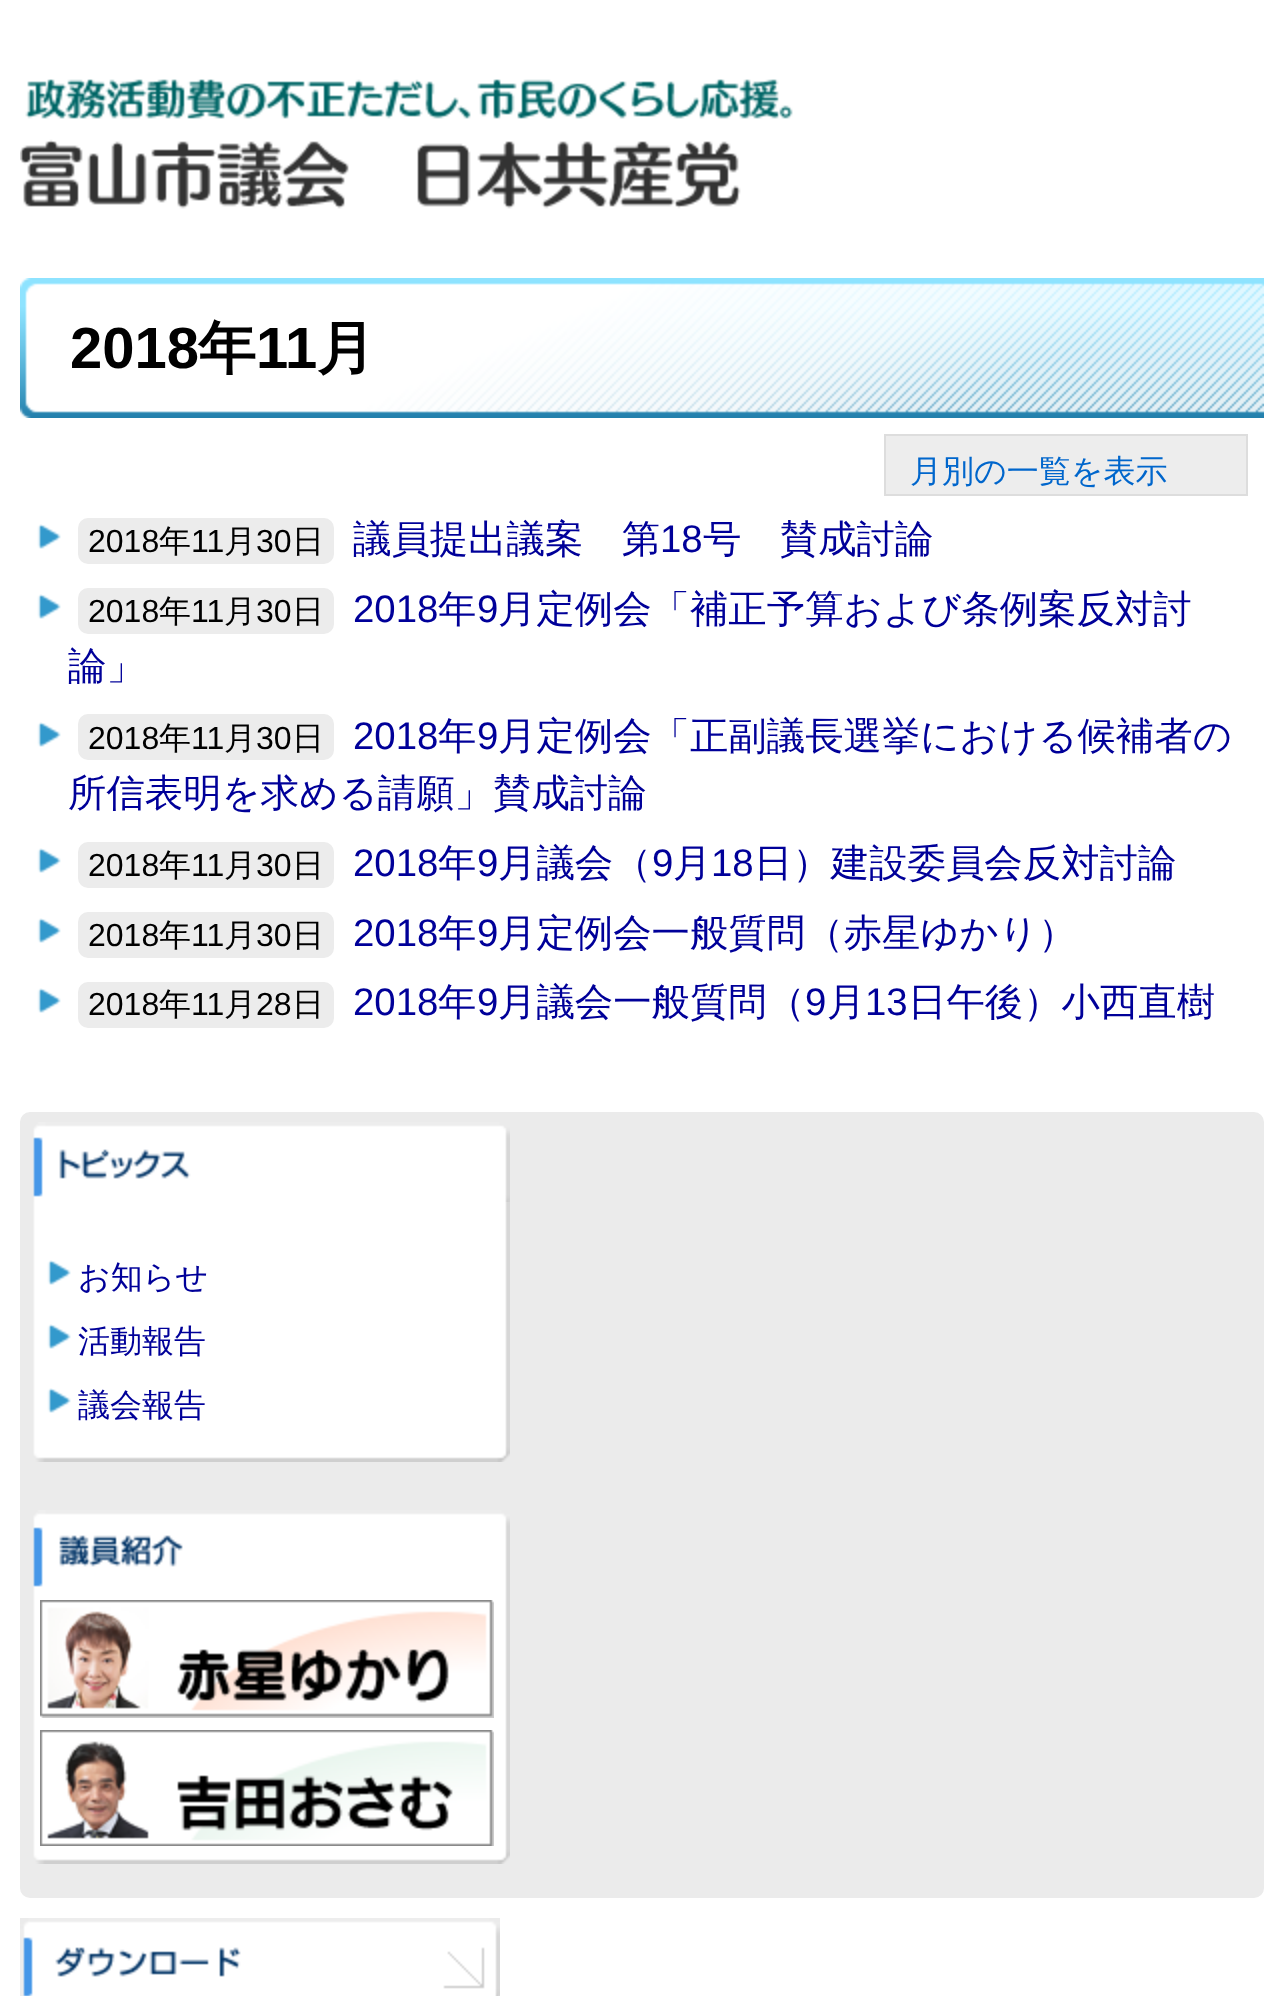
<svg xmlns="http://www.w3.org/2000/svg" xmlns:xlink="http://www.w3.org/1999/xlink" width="1283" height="1996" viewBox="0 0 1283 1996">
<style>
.cls-1{font:bold 58px Liberation Sans;fill:#000000}
.cls-2{font:bold 58px WenQuanYi Zen Hei;fill:#000000}
.cls-3{font:500 32px WenQuanYi Zen Hei;fill:#0066cc}
.cls-4{font:32px Liberation Sans;fill:#000000}
.cls-5{font:500 32px WenQuanYi Zen Hei;fill:#000000}
.cls-6{font:500 38.4px WenQuanYi Zen Hei;fill:#000099}
.cls-7{font:38.4px Liberation Sans;fill:#000099}
.cls-8{font:500 32px WenQuanYi Zen Hei;fill:#000099}
</style>
<rect width="100%" height="100%" fill="#ffffff"/>
<image xlink:href="image0.png" x="20" y="79" width="773" height="130"/>
<image xlink:href="image1.png" x="20" y="278" width="1244" height="140"/>
<rect fill="#ededed" stroke="#dddddd" stroke-width="2" x="885" y="435" width="362" height="60"/>
<image xlink:href="image2.png" x="37" y="524" width="24" height="25"/>
<rect fill="#ececec" x="78" y="518" width="256" height="46" rx="10"/>
<image xlink:href="image2.png" x="37" y="594" width="24" height="25"/>
<rect fill="#ececec" x="78" y="588" width="256" height="46" rx="10"/>
<image xlink:href="image2.png" x="37" y="722" width="24" height="25"/>
<rect fill="#ececec" x="78" y="714" width="256" height="46" rx="10"/>
<image xlink:href="image2.png" x="37" y="848" width="24" height="25"/>
<rect fill="#ececec" x="78" y="842" width="256" height="46" rx="10"/>
<image xlink:href="image2.png" x="37" y="918" width="24" height="25"/>
<rect fill="#ececec" x="78" y="912" width="256" height="46" rx="10"/>
<image xlink:href="image2.png" x="37" y="988" width="24" height="25"/>
<rect fill="#ececec" x="78" y="982" width="256" height="46" rx="10"/>
<rect fill="#ebebeb" x="20" y="1112" width="1244" height="786" rx="10"/>
<image xlink:href="image3.png" x="33" y="1202" width="477" height="260"/>
<image xlink:href="image4.png" x="33" y="1122" width="477" height="80"/>
<image xlink:href="image2.png" x="47" y="1260" width="24" height="25"/>
<image xlink:href="image2.png" x="47" y="1324" width="24" height="25"/>
<image xlink:href="image2.png" x="47" y="1388" width="24" height="25"/>
<image xlink:href="image5.png" x="33" y="1587" width="477" height="277"/>
<image xlink:href="image6.png" x="33" y="1510" width="477" height="77"/>
<image xlink:href="image7.png" x="40" y="1600" width="454" height="118"/>
<image xlink:href="image8.png" x="40" y="1730" width="454" height="116"/>
<image xlink:href="image9.png" x="20" y="1918" width="480" height="78"/>
<text class="cls-1" x="70" y="368">2018</text>
<text class="cls-2" x="198" y="368">年</text>
<text class="cls-1" x="256" y="368">11</text>
<text class="cls-2" x="317" y="368">月</text>
<text class="cls-3" x="910" y="482">月別の一覧を表示</text>
<text class="cls-4" x="88" y="552">2018</text>
<text class="cls-5" x="159" y="552">年</text>
<text class="cls-4" x="191" y="552">11</text>
<text class="cls-5" x="224" y="552">月</text>
<text class="cls-4" x="256" y="552">30</text>
<text class="cls-5" x="292" y="552">日</text>
<text class="cls-6" x="353" y="552">議員提出議案　第</text>
<text class="cls-7" x="660" y="552">18</text>
<text class="cls-6" x="703" y="552">号　賛成討論</text>
<text class="cls-4" x="88" y="622">2018</text>
<text class="cls-5" x="159" y="622">年</text>
<text class="cls-4" x="191" y="622">11</text>
<text class="cls-5" x="224" y="622">月</text>
<text class="cls-4" x="256" y="622">30</text>
<text class="cls-5" x="292" y="622">日</text>
<text class="cls-7" x="353" y="622">2018</text>
<text class="cls-6" x="438" y="622">年</text>
<text class="cls-7" x="477" y="622">9</text>
<text class="cls-6" x="498" y="622">月定例会「補正予算および条例案反対討</text>
<text class="cls-6" x="68" y="679">論」</text>
<text class="cls-4" x="88" y="749">2018</text>
<text class="cls-5" x="159" y="749">年</text>
<text class="cls-4" x="191" y="749">11</text>
<text class="cls-5" x="224" y="749">月</text>
<text class="cls-4" x="256" y="749">30</text>
<text class="cls-5" x="292" y="749">日</text>
<text class="cls-7" x="353" y="749">2018</text>
<text class="cls-6" x="438" y="749">年</text>
<text class="cls-7" x="477" y="749">9</text>
<text class="cls-6" x="498" y="749">月定例会「正副議長選挙における候補者の</text>
<text class="cls-6" x="68" y="806">所信表明を求める請願」賛成討論</text>
<text class="cls-4" x="88" y="876">2018</text>
<text class="cls-5" x="159" y="876">年</text>
<text class="cls-4" x="191" y="876">11</text>
<text class="cls-5" x="224" y="876">月</text>
<text class="cls-4" x="256" y="876">30</text>
<text class="cls-5" x="292" y="876">日</text>
<text class="cls-7" x="353" y="876">2018</text>
<text class="cls-6" x="438" y="876">年</text>
<text class="cls-7" x="477" y="876">9</text>
<text class="cls-6" x="498" y="876">月議会（</text>
<text class="cls-7" x="652" y="876">9</text>
<text class="cls-6" x="673" y="876">月</text>
<text class="cls-7" x="711" y="876">18</text>
<text class="cls-6" x="754" y="876">日）建設委員会反対討論</text>
<text class="cls-4" x="88" y="946">2018</text>
<text class="cls-5" x="159" y="946">年</text>
<text class="cls-4" x="191" y="946">11</text>
<text class="cls-5" x="224" y="946">月</text>
<text class="cls-4" x="256" y="946">30</text>
<text class="cls-5" x="292" y="946">日</text>
<text class="cls-7" x="353" y="946">2018</text>
<text class="cls-6" x="438" y="946">年</text>
<text class="cls-7" x="477" y="946">9</text>
<text class="cls-6" x="498" y="946">月定例会一般質問（赤星ゆかり）</text>
<text class="cls-4" x="88" y="1015">2018</text>
<text class="cls-5" x="159" y="1015">年</text>
<text class="cls-4" x="191" y="1015">11</text>
<text class="cls-5" x="224" y="1015">月</text>
<text class="cls-4" x="256" y="1015">28</text>
<text class="cls-5" x="292" y="1015">日</text>
<text class="cls-7" x="353" y="1015">2018</text>
<text class="cls-6" x="438" y="1015">年</text>
<text class="cls-7" x="477" y="1015">9</text>
<text class="cls-6" x="498" y="1015">月議会一般質問（</text>
<text class="cls-7" x="805" y="1015">9</text>
<text class="cls-6" x="827" y="1015">月</text>
<text class="cls-7" x="865" y="1015">13</text>
<text class="cls-6" x="908" y="1015">日午後）小西直樹</text>
<text class="cls-8" x="78" y="1288">お知らせ</text>
<text class="cls-8" x="78" y="1352">活動報告</text>
<text class="cls-8" x="78" y="1416">議会報告</text>
</svg>
